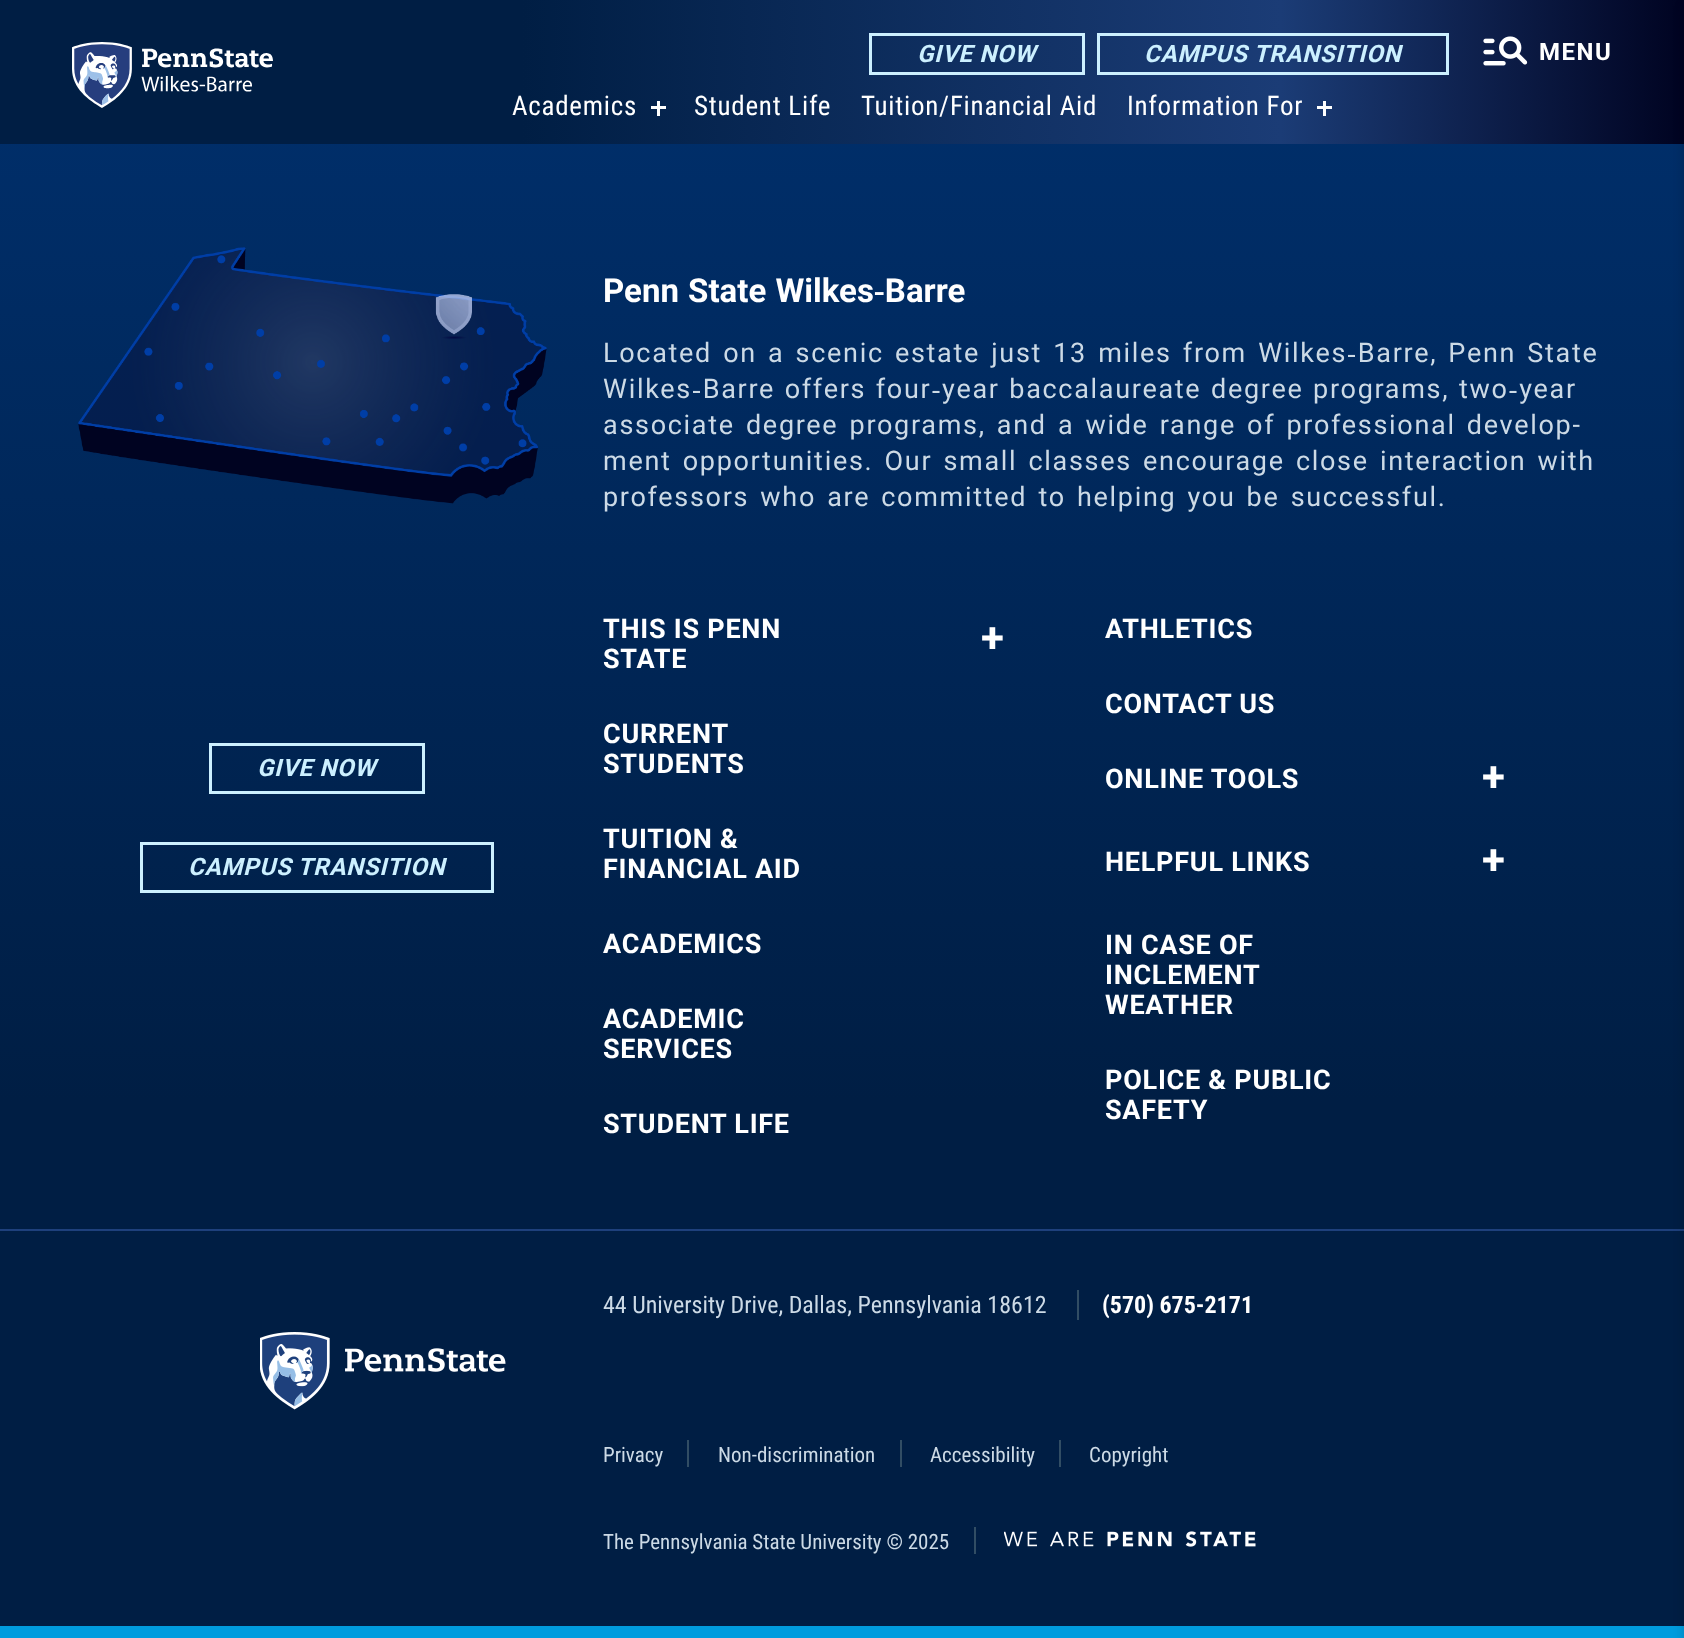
<svg xmlns="http://www.w3.org/2000/svg" xmlns:xlink="http://www.w3.org/1999/xlink" width="1684" height="1638" viewBox="0 0 1684 1638">
<style>
.cls-1{font:italic bold 24px Roboto;letter-spacing:0.75px;fill:#ccf0ff}
.cls-2{font:bold 24px Roboto;letter-spacing:1.5px;fill:#ffffff}
.cls-3{font:27px Roboto Condensed;letter-spacing:0.75px;fill:#ffffff}
.cls-4{font:bold 33px Roboto;fill:#ffffff}
.cls-5{font:27px Roboto;letter-spacing:1.7px;fill:#ccdae6}
.cls-6{font:bold 27px Roboto;letter-spacing:0.75px;fill:#ffffff}
.cls-7{font:bold 42px Roboto;fill:#ffffff}
.cls-8{font:24px Roboto Condensed;fill:#ccdae6}
.cls-9{font:bold 24px Roboto Condensed;fill:#ffffff}
.cls-10{font:21px Roboto Condensed;fill:#ccdae6}
</style>
<defs>
<linearGradient id="g1" gradientUnits="userSpaceOnUse" x1="0" y1="72" x2="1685" y2="72"><stop offset="0" stop-color="#001e44"/><stop offset="0.31" stop-color="#001e44"/><stop offset="0.76" stop-color="#1b3c76"/><stop offset="1" stop-color="#000321"/></linearGradient>
<linearGradient id="g2" gradientUnits="userSpaceOnUse" x1="842" y1="127" x2="842" y2="1626"><stop offset="0" stop-color="#002e69"/><stop offset="0.65" stop-color="#001e44"/><stop offset="1" stop-color="#001e44"/></linearGradient>
</defs>
<rect width="100%" height="100%" fill="#ffffff"/>
<rect fill="url(#g1)" x="0" y="0" width="1684" height="144"/>
<image xlink:href="image0.png" x="72" y="42" width="201" height="66"/>
<rect fill="none" stroke="#ccf0ff" stroke-width="3" x="870.5" y="34.5" width="213" height="39"/>
<rect fill="none" stroke="#ccf0ff" stroke-width="3" x="1098.5" y="34.5" width="349" height="39"/>
<image xlink:href="image1.png" x="1483" y="36" width="45" height="30"/>
<rect fill="#ffffff" x="651" y="106" width="15" height="3"/>
<rect fill="#ffffff" x="657" y="101" width="3" height="15"/>
<rect fill="#ffffff" x="1317" y="106" width="15" height="3"/>
<rect fill="#ffffff" x="1323" y="101" width="3" height="15"/>
<rect fill="url(#g2)" x="0" y="144" width="1684" height="1482"/>
<rect fill="#009cde" x="0" y="1626" width="1684" height="12"/>
<rect fill="#1e407c" x="0" y="1229" width="1684" height="2"/>
<rect fill="#000000" fill-opacity="0.2" filter="blur(6px)" x="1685" y="6" width="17" height="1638"/>
<image xlink:href="image2.png" x="78" y="247" width="469" height="257"/>
<rect fill="none" stroke="#ccf0ff" stroke-width="3" x="210.5" y="744.5" width="213" height="48"/>
<rect fill="none" stroke="#ccf0ff" stroke-width="3" x="141.5" y="843.5" width="351" height="48"/>
<rect fill="#314d64" x="1077" y="1290" width="2" height="30"/>
<image xlink:href="image3.png" x="260" y="1332" width="246" height="78"/>
<rect fill="#314d64" x="687" y="1440" width="2" height="27"/>
<rect fill="#314d64" x="900" y="1440" width="2" height="27"/>
<rect fill="#314d64" x="1059" y="1440" width="2" height="27"/>
<rect fill="#314d64" x="974" y="1527" width="2" height="27"/>
<image xlink:href="image4.png" x="1004" y="1531" width="252" height="16"/>
<text class="cls-1" x="917" y="62">GIVE NOW</text>
<text class="cls-1" x="1144" y="62">CAMPUS TRANSITION</text>
<text class="cls-2" x="1539" y="60">MENU</text>
<text class="cls-3" x="512" y="115">Academics</text>
<text class="cls-3" x="694" y="115">Student Life</text>
<text class="cls-3" x="861" y="115">Tuition/Financial Aid</text>
<text class="cls-3" x="1127" y="115">Information For</text>
<text class="cls-4" x="603" y="302" word-spacing="1">Penn State Wilkes‑Barre</text>
<text class="cls-5"><tspan x="603" y="362" word-spacing="2.75">Located on a scenic estate just 13 miles from Wilkes‑Barre, Penn State</tspan><tspan x="603" y="398" word-spacing="1.25">Wilkes‑Barre offers four‑year baccalaureate degree programs, two‑year</tspan><tspan x="603" y="434" word-spacing="2.75">associate degree programs, and a wide range of professional develop-</tspan><tspan x="603" y="470" word-spacing="2.75">ment opportunities. Our small classes encourage close interaction with</tspan><tspan x="603" y="506" word-spacing="2.75">professors who are committed to helping you be successful.</tspan></text>
<text class="cls-1" x="257" y="776">GIVE NOW</text>
<text class="cls-1" x="188" y="875">CAMPUS TRANSITION</text>
<text class="cls-6"><tspan x="603" y="638">THIS IS PENN</tspan><tspan x="603" y="668">STATE</tspan></text>
<text class="cls-7" x="981" y="652">+</text>
<text class="cls-6"><tspan x="603" y="743">CURRENT</tspan><tspan x="603" y="773">STUDENTS</tspan></text>
<text class="cls-6"><tspan x="603" y="848">TUITION &amp;</tspan><tspan x="603" y="878">FINANCIAL AID</tspan></text>
<text class="cls-6" x="603" y="953">ACADEMICS</text>
<text class="cls-6"><tspan x="603" y="1028">ACADEMIC</tspan><tspan x="603" y="1058">SERVICES</tspan></text>
<text class="cls-6" x="603" y="1133">STUDENT LIFE</text>
<text class="cls-6" x="1105" y="638">ATHLETICS</text>
<text class="cls-6" x="1105" y="713">CONTACT US</text>
<text class="cls-6" x="1105" y="788">ONLINE TOOLS</text>
<text class="cls-7" x="1482" y="791">+</text>
<text class="cls-6" x="1105" y="871">HELPFUL LINKS</text>
<text class="cls-7" x="1482" y="874">+</text>
<text class="cls-6"><tspan x="1105" y="954">IN CASE OF</tspan><tspan x="1105" y="984">INCLEMENT</tspan><tspan x="1105" y="1014">WEATHER</tspan></text>
<text class="cls-6"><tspan x="1105" y="1089">POLICE &amp; PUBLIC</tspan><tspan x="1105" y="1119">SAFETY</tspan></text>
<text class="cls-8" x="603" y="1313">44 University Drive, Dallas, Pennsylvania 18612</text>
<text class="cls-9" x="1102" y="1313">(570) 675-2171</text>
<text class="cls-10" x="603" y="1462">Privacy</text>
<text class="cls-10" x="718" y="1462">Non-discrimination</text>
<text class="cls-10" x="930" y="1462">Accessibility</text>
<text class="cls-10" x="1089" y="1462">Copyright</text>
<text class="cls-10" x="603" y="1549">The Pennsylvania State University © 2025</text>
</svg>
